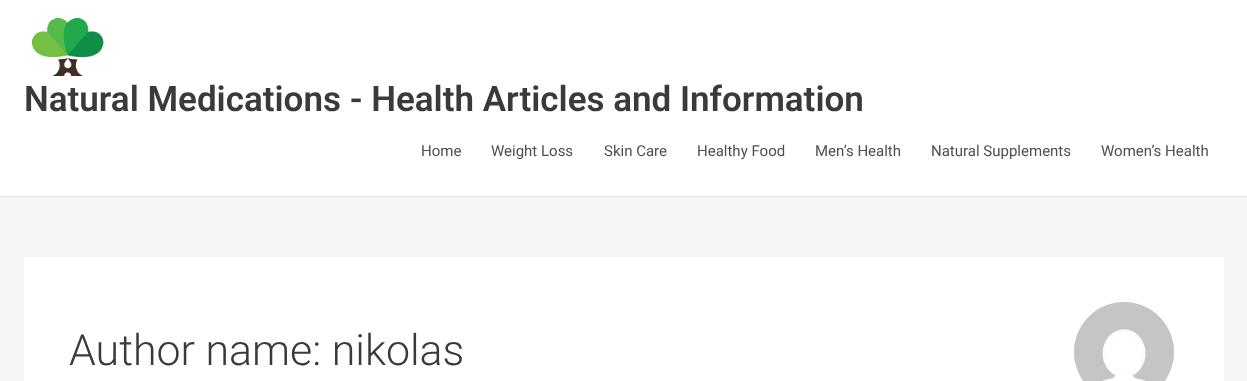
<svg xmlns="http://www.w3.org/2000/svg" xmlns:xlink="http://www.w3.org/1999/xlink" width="1247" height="381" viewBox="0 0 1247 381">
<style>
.cls-1{font:600 35px Roboto;fill:#3a3a3a}
.cls-2{font:15px Roboto;fill:#4b4f58}
.cls-3{font:300 42.9px Roboto;fill:#3a3a3a}
</style>
<rect width="100%" height="100%" fill="#f5f5f5"/>
<rect fill="#ffffff" x="0" y="0" width="1247" height="196"/>
<rect fill="#e5e5e5" x="0" y="196" width="1247" height="1"/>
<image xlink:href="image0.png" x="32" y="18" width="72" height="58"/>
<rect fill="#ffffff" x="24" y="257" width="1200" height="124"/>
<image xlink:href="image1.png" x="1074" y="302" width="100" height="79"/>
<text class="cls-1" x="24" y="111">Natural Medications - Health Articles and Information</text>
<text class="cls-2" x="421" y="156">Home</text>
<text class="cls-2" x="491" y="156">Weight Loss</text>
<text class="cls-2" x="604" y="156">Skin Care</text>
<text class="cls-2" x="697" y="156">Healthy Food</text>
<text class="cls-2" x="815" y="156">Men’s Health</text>
<text class="cls-2" x="931" y="156">Natural Supplements</text>
<text class="cls-2" x="1101" y="156">Women’s Health</text>
<text class="cls-3" x="69" y="365">Author name: nikolas</text>
</svg>
